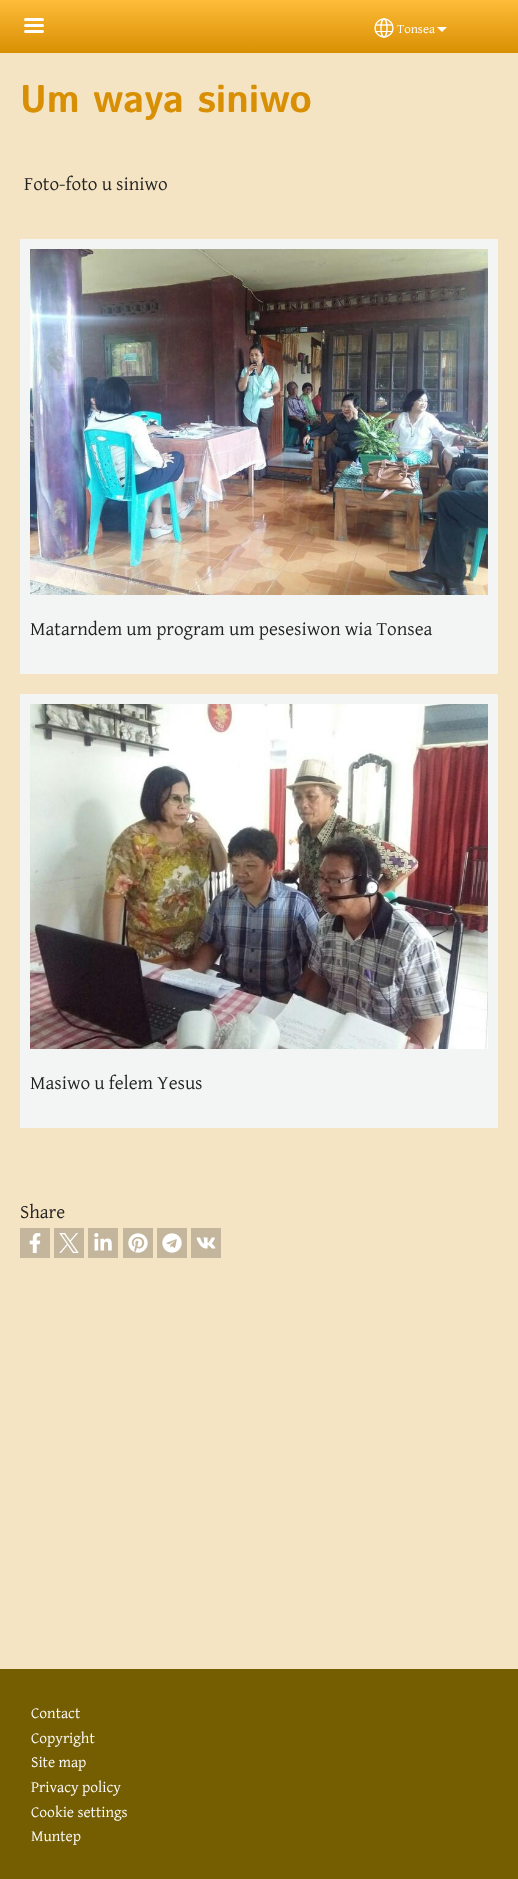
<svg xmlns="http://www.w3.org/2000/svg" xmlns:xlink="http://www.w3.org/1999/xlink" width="518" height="1879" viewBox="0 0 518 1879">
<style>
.cls-1{font:13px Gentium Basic;fill:#fdfdfd}
.cls-2{font:bold 38.5px Istok Web;fill:#d88f03}
.cls-3{font:19.2px Gentium Basic;fill:#222222}
.cls-4{font:15.5px Gentium Basic;fill:#fdfdfd}
</style>
<defs>
<linearGradient id="g1" gradientUnits="userSpaceOnUse" x1="259" y1="0" x2="259" y2="53"><stop offset="0" stop-color="#ffbc38"/><stop offset="1" stop-color="#d88f03"/></linearGradient>
</defs>
<rect width="100%" height="100%" fill="#f5e4c3"/>
<rect fill="url(#g1)" x="0" y="0" width="518" height="53"/>
<rect fill="#fefefe" x="24" y="18" width="20" height="3" rx="1.5"/>
<rect fill="#fefefe" x="24" y="24" width="20" height="3" rx="1.5"/>
<rect fill="#fefefe" x="24" y="30" width="20" height="3" rx="1.5"/>
<circle fill="none" stroke="#fefefe" stroke-width="1.4" cx="384" cy="28" r="9"/>
<ellipse fill="none" stroke="#fefefe" stroke-width="1.4" cx="384" cy="28" rx="3" ry="9"/>
<path fill="none" stroke="#fefefe" stroke-width="1.4" d="M375 25H392.5"/>
<rect fill="#fefefe" x="375" y="31" width="18" height="1"/>
<path fill="#fefefe" d="M437 27H447L442 32Z"/>
<rect fill="#f3f5f5" x="20" y="239" width="478" height="435"/>
<image xlink:href="image0.png" x="30" y="249" width="458" height="346"/>
<rect fill="#f3f5f5" x="20" y="694" width="478" height="434"/>
<image xlink:href="image1.png" x="30" y="704" width="458" height="345"/>
<rect fill="#c4b69c" x="20" y="1228" width="30" height="30"/>
<image xlink:href="image2.png" x="29" y="1233" width="12" height="20"/>
<rect fill="#c4b69c" x="54" y="1228" width="30" height="30"/>
<image xlink:href="image3.png" x="59" y="1233" width="20" height="20"/>
<rect fill="#c4b69c" x="88" y="1228" width="30" height="30"/>
<image xlink:href="image4.png" x="94" y="1233" width="18" height="18"/>
<rect fill="#c4b69c" x="123" y="1228" width="30" height="30"/>
<image xlink:href="image5.png" x="128" y="1233" width="20" height="20"/>
<rect fill="#c4b69c" x="157" y="1228" width="30" height="30"/>
<image xlink:href="image6.png" x="162" y="1233" width="20" height="20"/>
<rect fill="#c4b69c" x="191" y="1228" width="30" height="30"/>
<image xlink:href="image7.png" x="196" y="1237" width="20" height="12"/>
<rect fill="#745e01" x="0" y="1669" width="518" height="210"/>
<text class="cls-1" x="397" y="33">Tonsea</text>
<text class="cls-2" x="20" y="112">Um waya siniwo</text>
<text class="cls-3" x="24" y="190">Foto-foto u siniwo</text>
<text class="cls-3" x="30" y="635">Matarndem um program um pesesiwon wia Tonsea</text>
<text class="cls-3" x="30" y="1089">Masiwo u felem Yesus</text>
<text class="cls-3" x="20" y="1218">Share</text>
<text class="cls-4"><tspan x="31" y="1718">Contact</tspan><tspan x="31" y="1743">Copyright</tspan><tspan x="31" y="1767">Site map</tspan><tspan x="31" y="1792">Privacy policy</tspan><tspan x="31" y="1817">Cookie settings</tspan><tspan x="31" y="1841">Muntep</tspan></text>
</svg>
